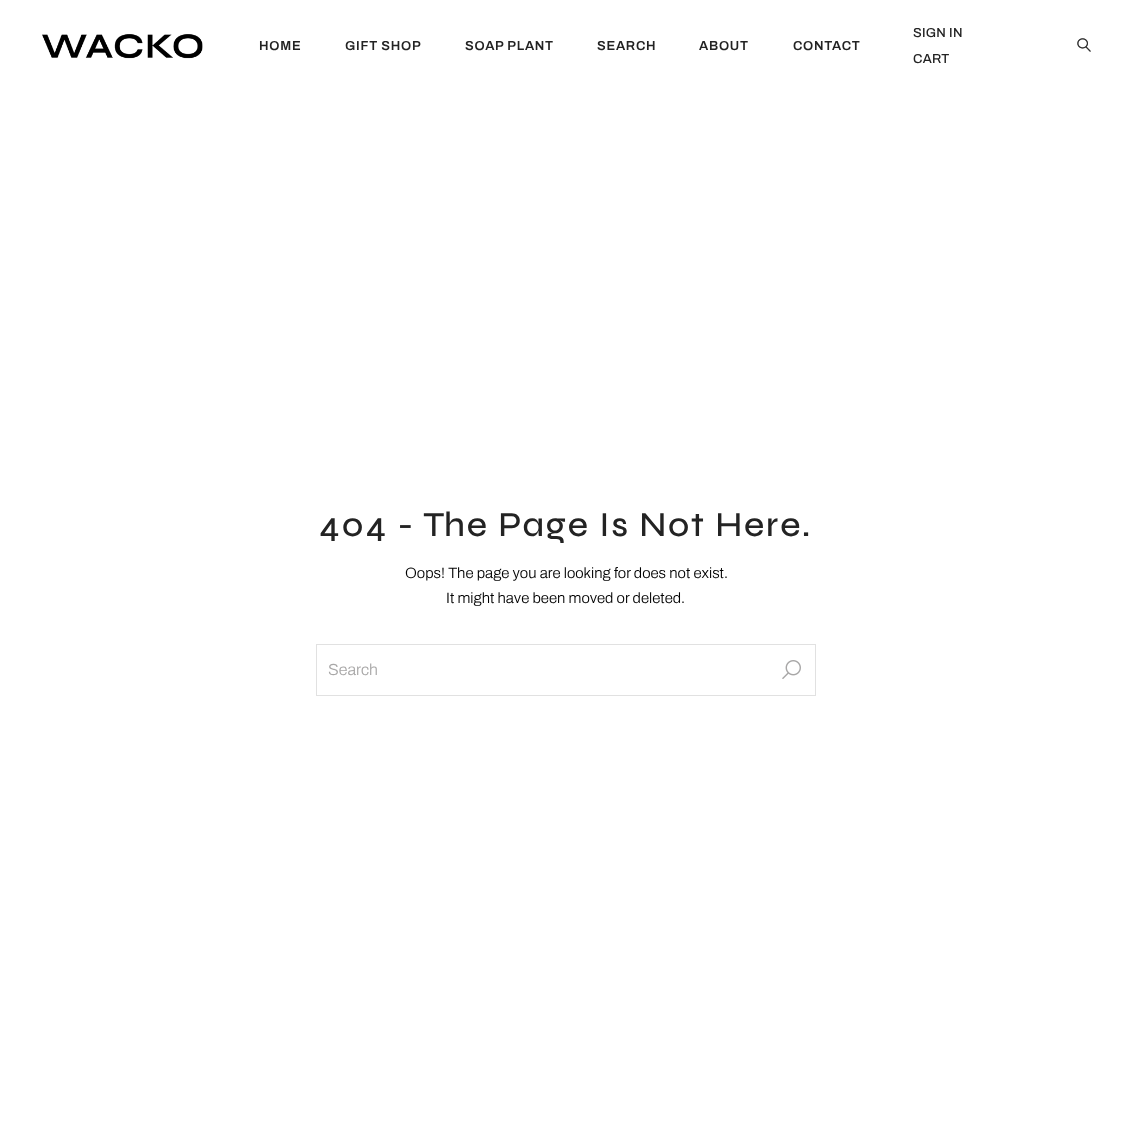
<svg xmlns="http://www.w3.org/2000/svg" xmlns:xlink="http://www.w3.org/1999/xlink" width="1132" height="1121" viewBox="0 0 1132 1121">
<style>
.cls-1{font:600 13px Archivo;letter-spacing:0.75px;fill:#232323}
.cls-2{font:500 13px Archivo;letter-spacing:0.25px;fill:#232323}
.cls-3{font:500 35px Syne;letter-spacing:1.75px;fill:#232323}
.cls-4{font:300 15px Archivo;fill:#000000}
.cls-5{font:300 16px Archivo;fill:#a8a7a7}
</style>
<rect width="100%" height="100%" fill="#ffffff"/>
<image xlink:href="image0.png" x="42" y="34" width="161" height="25"/>
<image xlink:href="image1.png" x="1077" y="38" width="14" height="14"/>
<rect fill="none" stroke="#e1e1e1" x="316.5" y="644.5" width="499" height="51"/>
<image xlink:href="image2.png" x="782" y="660" width="19" height="19"/>
<text class="cls-1" x="259" y="50">HOME</text>
<text class="cls-1" x="345" y="50">GIFT SHOP</text>
<text class="cls-1" x="465" y="50">SOAP PLANT</text>
<text class="cls-1" x="597" y="50">SEARCH</text>
<text class="cls-1" x="699" y="50">ABOUT</text>
<text class="cls-1" x="793" y="50">CONTACT</text>
<text class="cls-2" x="913" y="37">SIGN IN</text>
<text class="cls-2" x="913" y="63">CART</text>
<text class="cls-3" x="319" y="536">404 - The Page Is Not Here.</text>
<text class="cls-4" x="405" y="578">Oops! The page you are looking for does not exist.</text>
<text class="cls-4" x="446" y="603">It might have been moved or deleted.</text>
<text class="cls-5" x="328" y="675">Search</text>
</svg>
